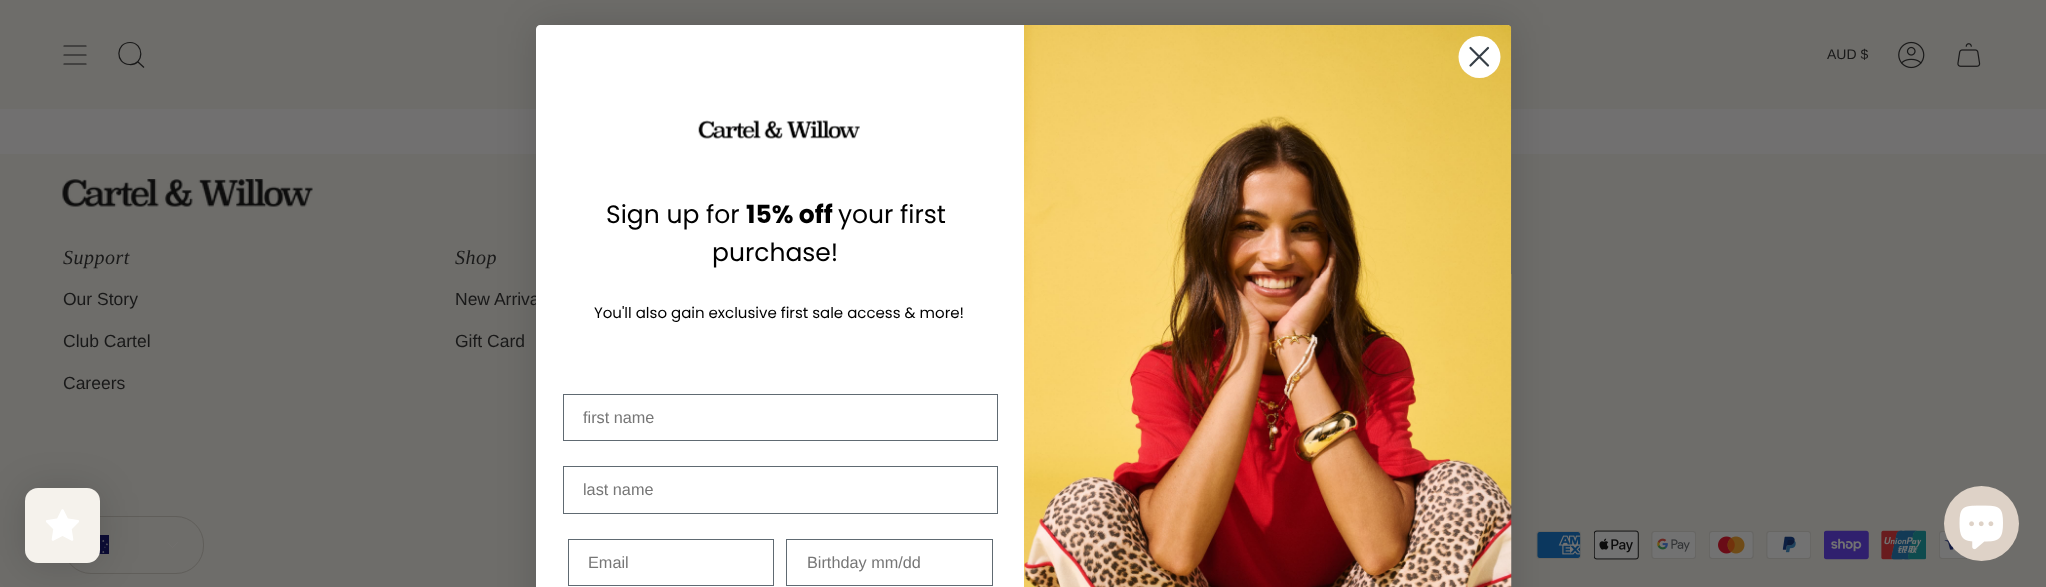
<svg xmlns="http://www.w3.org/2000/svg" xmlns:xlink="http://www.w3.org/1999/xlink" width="2046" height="587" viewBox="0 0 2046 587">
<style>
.cls-1{font:14px Liberation Sans;fill:#191919}
.cls-2{font:italic 20px Liberation Serif;letter-spacing:0.5px;fill:#191919}
.cls-3{font:17.5px Liberation Sans;fill:#191919}
.cls-4{font:25px Poppins;fill:#000000}
.cls-5{font:bold 25px Poppins;fill:#000000}
.cls-6{font:15px Poppins;fill:#000000}
.cls-7{font:16.25px Liberation Sans;fill:#767676}
</style>
<rect width="100%" height="100%" fill="#6e6d6a"/>
<path fill="none" stroke="#191919" stroke-width="1.2" stroke-linecap="round" stroke-linejoin="round" d="M64 46H86M64 55H86M64 64H86"/>
<path fill="none" stroke="#191919" stroke-width="1.2" d="M130 42.5C144.5 42.5 144.5 65.5 129.5 64.5C115 64 115.5 42.5 130 42.5ZM137.5 61.5L144 67.5"/>
<image xlink:href="image0.png" x="1898" y="41" width="27" height="28"/>
<image xlink:href="image1.png" x="1957" y="43" width="24" height="24"/>
<rect fill="#717070" x="0" y="109" width="2046" height="45"/>
<image xlink:href="image2.png" x="62" y="179" width="251" height="28"/>
<rect fill="none" stroke="#605e5a" x="63.5" y="516.5" width="140" height="57" rx="27.5"/>
<image xlink:href="image3.png" x="99" y="535" width="10" height="19"/>
<path fill="none" stroke="#72706e" stroke-width="0.8" stroke-linecap="round" stroke-linejoin="round" d="M167.5 542.5L172.5 547.5L177.5 542.5"/>
<image xlink:href="image4.png" x="1536" y="531" width="45" height="28"/>
<image xlink:href="image5.png" x="1594" y="530" width="45" height="30"/>
<image xlink:href="image6.png" x="1651" y="531" width="45" height="28"/>
<image xlink:href="image7.png" x="1709" y="531" width="45" height="28"/>
<image xlink:href="image8.png" x="1766" y="531" width="45" height="28"/>
<image xlink:href="image9.png" x="1824" y="530" width="45" height="30"/>
<image xlink:href="image10.png" x="1881" y="530" width="45" height="30"/>
<image xlink:href="image11.png" x="1939" y="531" width="31" height="28"/>
<rect fill="#000000" fill-opacity="0.15" filter="blur(19px)" x="536" y="25" width="975" height="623" rx="4"/>
<rect fill="#000000" fill-opacity="0.15" filter="blur(19px)" x="25" y="490" width="75" height="75" rx="13"/>
<rect fill="#f5f2ec" x="25" y="488" width="75" height="75" rx="13"/>
<image xlink:href="image14.png" x="46" y="509" width="33" height="32"/>
<circle fill="#ded2c7" cx="1981.5" cy="523.5" r="37.5"/>
<image xlink:href="image15.png" x="1959" y="505" width="44" height="45"/>
<text class="cls-1" x="1827" y="59">AUD $</text>
<text class="cls-2" x="63" y="264">Support</text>
<text class="cls-3" x="63" y="305">Our Story</text>
<text class="cls-3" x="63" y="347">Club Cartel</text>
<text class="cls-3" x="63" y="389">Careers</text>
<text class="cls-2" x="455" y="264">Shop</text>
<text class="cls-3" x="455" y="305">New Arriva</text>
<text class="cls-3" x="455" y="347">Gift Card</text>
<path fill="#ffffff" d="M540 25H1507C1509 25 1511 27 1511 29V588H536V29C536 27 538 25 540 25Z"/>
<image xlink:href="image12.png" x="698" y="120" width="162" height="19"/>
<text class="cls-4" x="606" y="223">Sign up for</text>
<text class="cls-5" x="746" y="223">15% off</text>
<text class="cls-4" x="838" y="223">your first</text>
<text class="cls-4" x="712" y="261">purchase!</text>
<text class="cls-6" x="594" y="318">You'll also gain exclusive first sale access &amp; more!</text>
<rect fill="none" stroke="#606a72" x="563.5" y="394.5" width="434" height="46"/>
<text class="cls-7" x="583" y="423">first name</text>
<rect fill="none" stroke="#606a72" x="563.5" y="466.5" width="434" height="47"/>
<text class="cls-7" x="583" y="495">last name</text>
<rect fill="none" stroke="#606a72" x="568.5" y="539.5" width="205" height="46"/>
<text class="cls-7" x="588" y="568">Email</text>
<rect fill="none" stroke="#606a72" x="786.5" y="539.5" width="206" height="46"/>
<text class="cls-7" x="807" y="568">Birthday mm/dd</text>
<image xlink:href="image13.png" x="1024" y="25" width="488" height="562"/>
<circle fill="#ffffff" cx="1479.5" cy="57" r="21"/>
<path fill="none" stroke="#373f47" stroke-width="2.2" stroke-linecap="round" stroke-linejoin="round" d="M1470.5 48L1488 65.5M1470.5 65.5L1488 48Z"/>
</svg>
